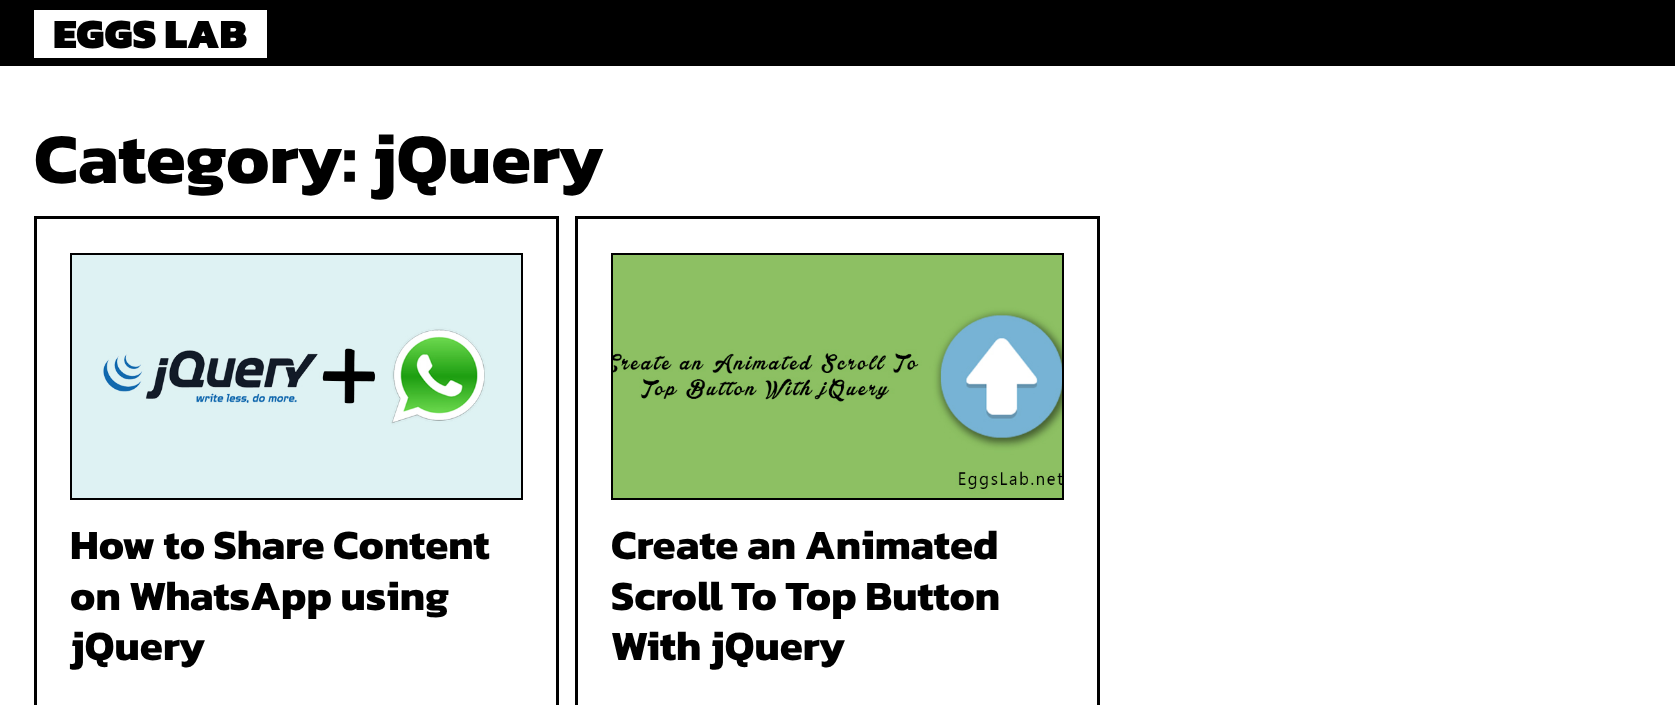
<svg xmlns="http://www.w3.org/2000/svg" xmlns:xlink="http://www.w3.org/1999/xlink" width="1675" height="705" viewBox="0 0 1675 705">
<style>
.cls-1{font:900 41.9px Kanit;fill:#000000}
.cls-2{font:bold 72px Kanit;fill:#000000}
.cls-3{font:bold 41.9px Kanit;fill:#000000}
</style>
<rect width="100%" height="100%" fill="#ffffff"/>
<rect fill="#000000" x="0" y="0" width="1675" height="66"/>
<rect fill="#ffffff" x="34" y="10" width="233" height="48"/>
<rect fill="none" stroke="#000000" stroke-width="3" x="35.5" y="217.5" width="522" height="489"/>
<rect fill="none" stroke="#000000" stroke-width="2" x="71" y="254" width="451" height="245"/>
<image xlink:href="image0.png" x="72" y="255" width="449" height="243"/>
<rect fill="none" stroke="#000000" stroke-width="3" x="576.5" y="217.5" width="522" height="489"/>
<rect fill="none" stroke="#000000" stroke-width="2" x="612" y="254" width="451" height="245"/>
<image xlink:href="image1.png" x="613" y="255" width="449" height="243"/>
<text class="cls-1" x="53" y="48">EGGS LAB</text>
<text class="cls-2" x="34" y="183">Category: jQuery</text>
<text class="cls-3"><tspan x="70" y="559">How to Share Content</tspan><tspan x="70" y="610">on WhatsApp using</tspan><tspan x="70" y="660">jQuery</tspan></text>
<text class="cls-3"><tspan x="611" y="559">Create an Animated</tspan><tspan x="611" y="610">Scroll To Top Button</tspan><tspan x="611" y="660">With jQuery</tspan></text>
</svg>
